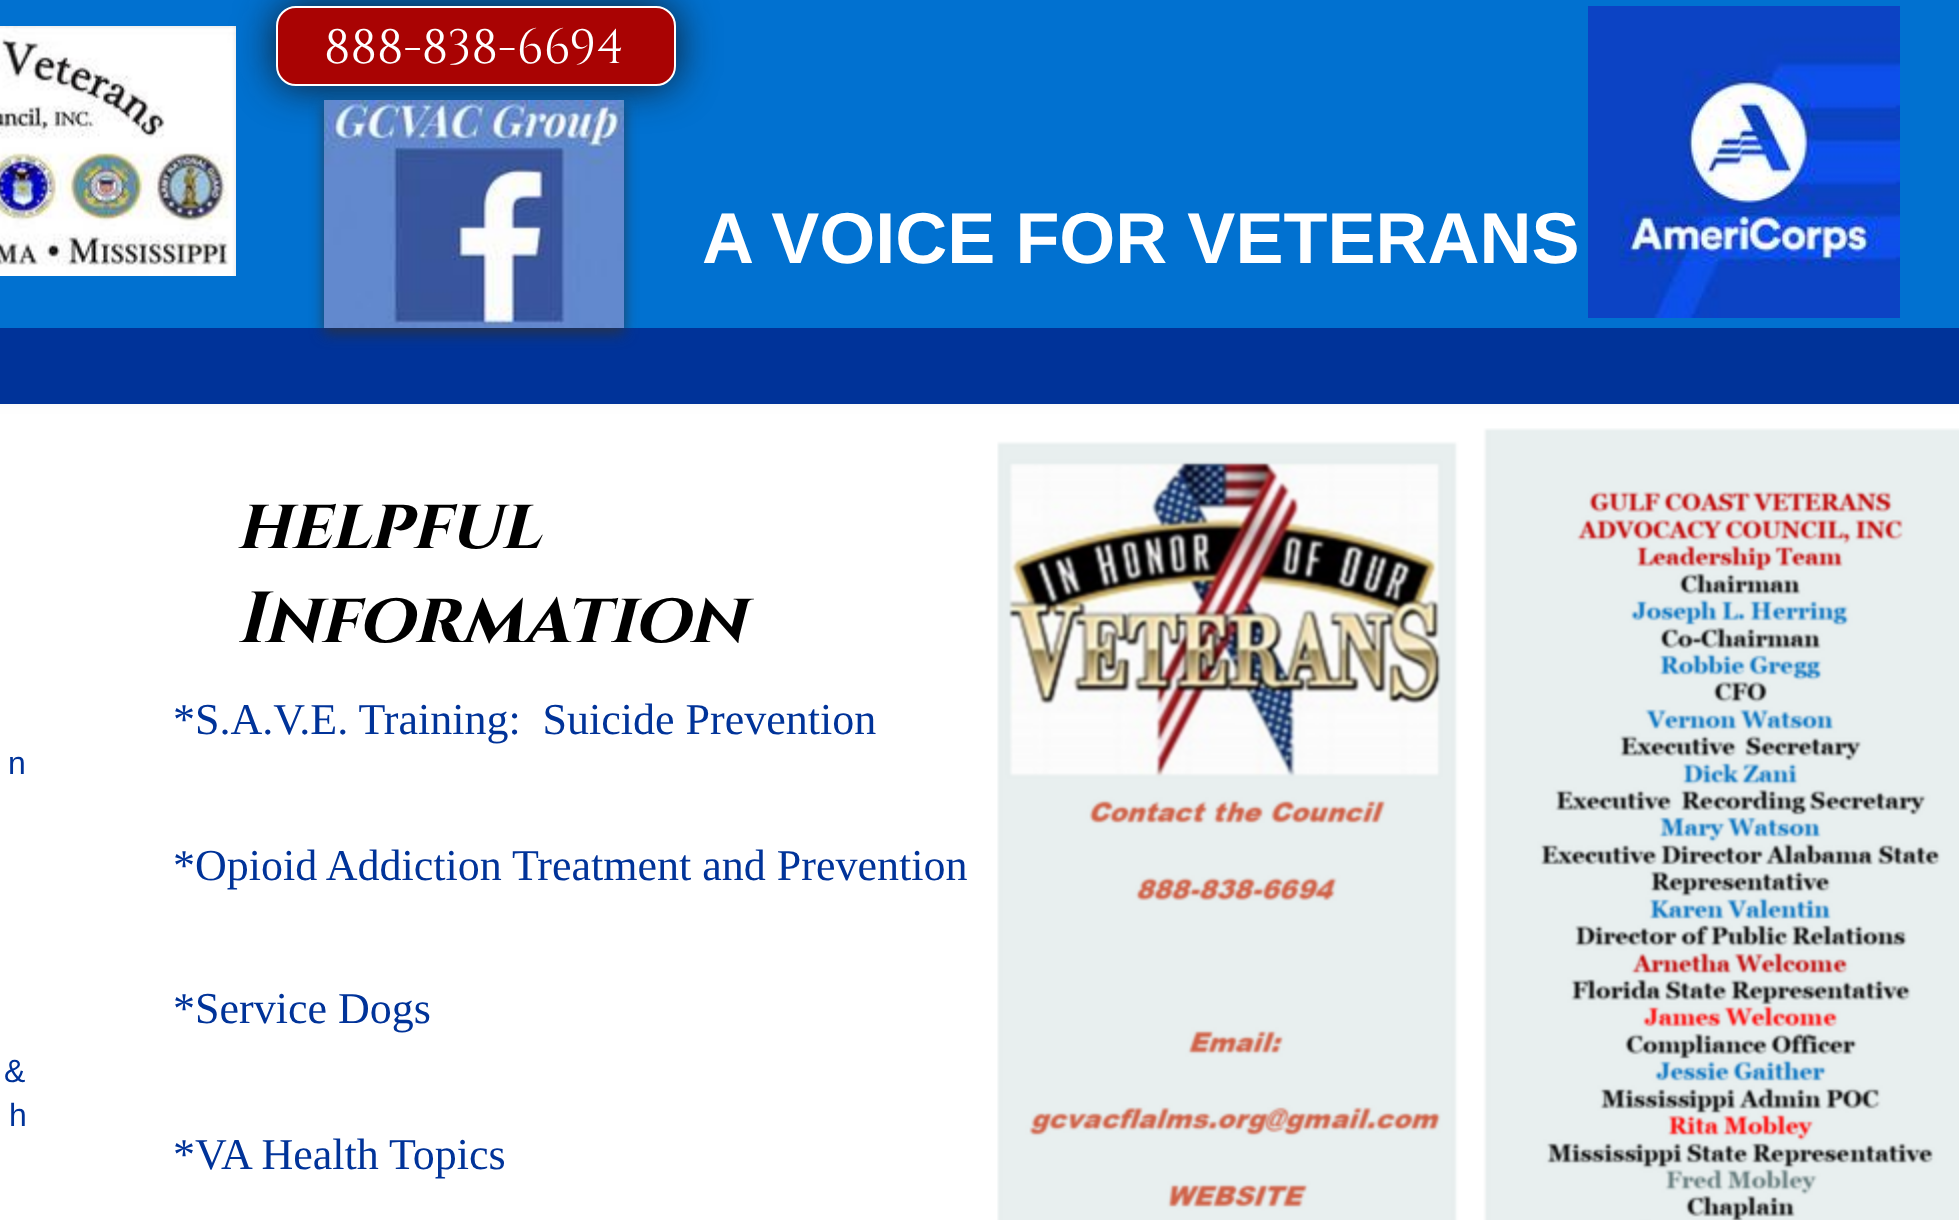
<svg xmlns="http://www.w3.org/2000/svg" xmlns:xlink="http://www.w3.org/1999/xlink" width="1959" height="1220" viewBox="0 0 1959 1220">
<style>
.cls-1{font:48px Cinzel;fill:#ffffff}
.cls-2{font:bold 72px Liberation Sans;fill:#ffffff}
.cls-3{font:italic bold 72px Cinzel;fill:#000000}
.cls-4{font:32px Liberation Sans;fill:#003399}
.cls-5{font:44px Liberation Serif;fill:#003399}
</style>
<rect width="100%" height="100%" fill="#ffffff"/>
<image xlink:href="image0.png" x="0" y="0" width="1959" height="1220"/>
<rect fill="#141414" fill-opacity="0.9" filter="blur(20px)" x="276" y="6" width="400" height="80" rx="20"/>
<image xlink:href="image1.png" x="0" y="26" width="236" height="250"/>
<rect fill="#a90303" stroke="#ffffff" stroke-width="2" x="277" y="7" width="398" height="78" rx="19"/>
<image xlink:href="image2.png" x="1588" y="6" width="312" height="312"/>
<rect fill="#003399" x="0" y="328" width="1959" height="76"/>
<rect fill="#323232" fill-opacity="0.75" filter="blur(7px)" x="324" y="106" width="300" height="228"/>
<image xlink:href="image3.png" x="324" y="100" width="300" height="228"/>
<image xlink:href="image4.png" x="997" y="428" width="962" height="792"/>
<text class="cls-1" x="324" y="63">888-838-6694</text>
<text class="cls-2" x="702" y="263">A VOICE FOR VETERANS</text>
<text class="cls-3"><tspan x="236" y="548">helpful</tspan><tspan x="236" y="642">Information</tspan></text>
<text class="cls-4" x="8" y="774">n</text>
<text class="cls-4" x="4" y="1082">&amp;</text>
<text class="cls-4" x="9" y="1126">h</text>
<text class="cls-5" xml:space="preserve" x="173" y="734">*S.A.V.E. Training:  Suicide Prevention</text>
<text class="cls-5" x="173" y="880">*Opioid Addiction Treatment and Prevention</text>
<text class="cls-5" x="173" y="1023">*Service Dogs</text>
<text class="cls-5" x="173" y="1169">*VA Health Topics</text>
</svg>
